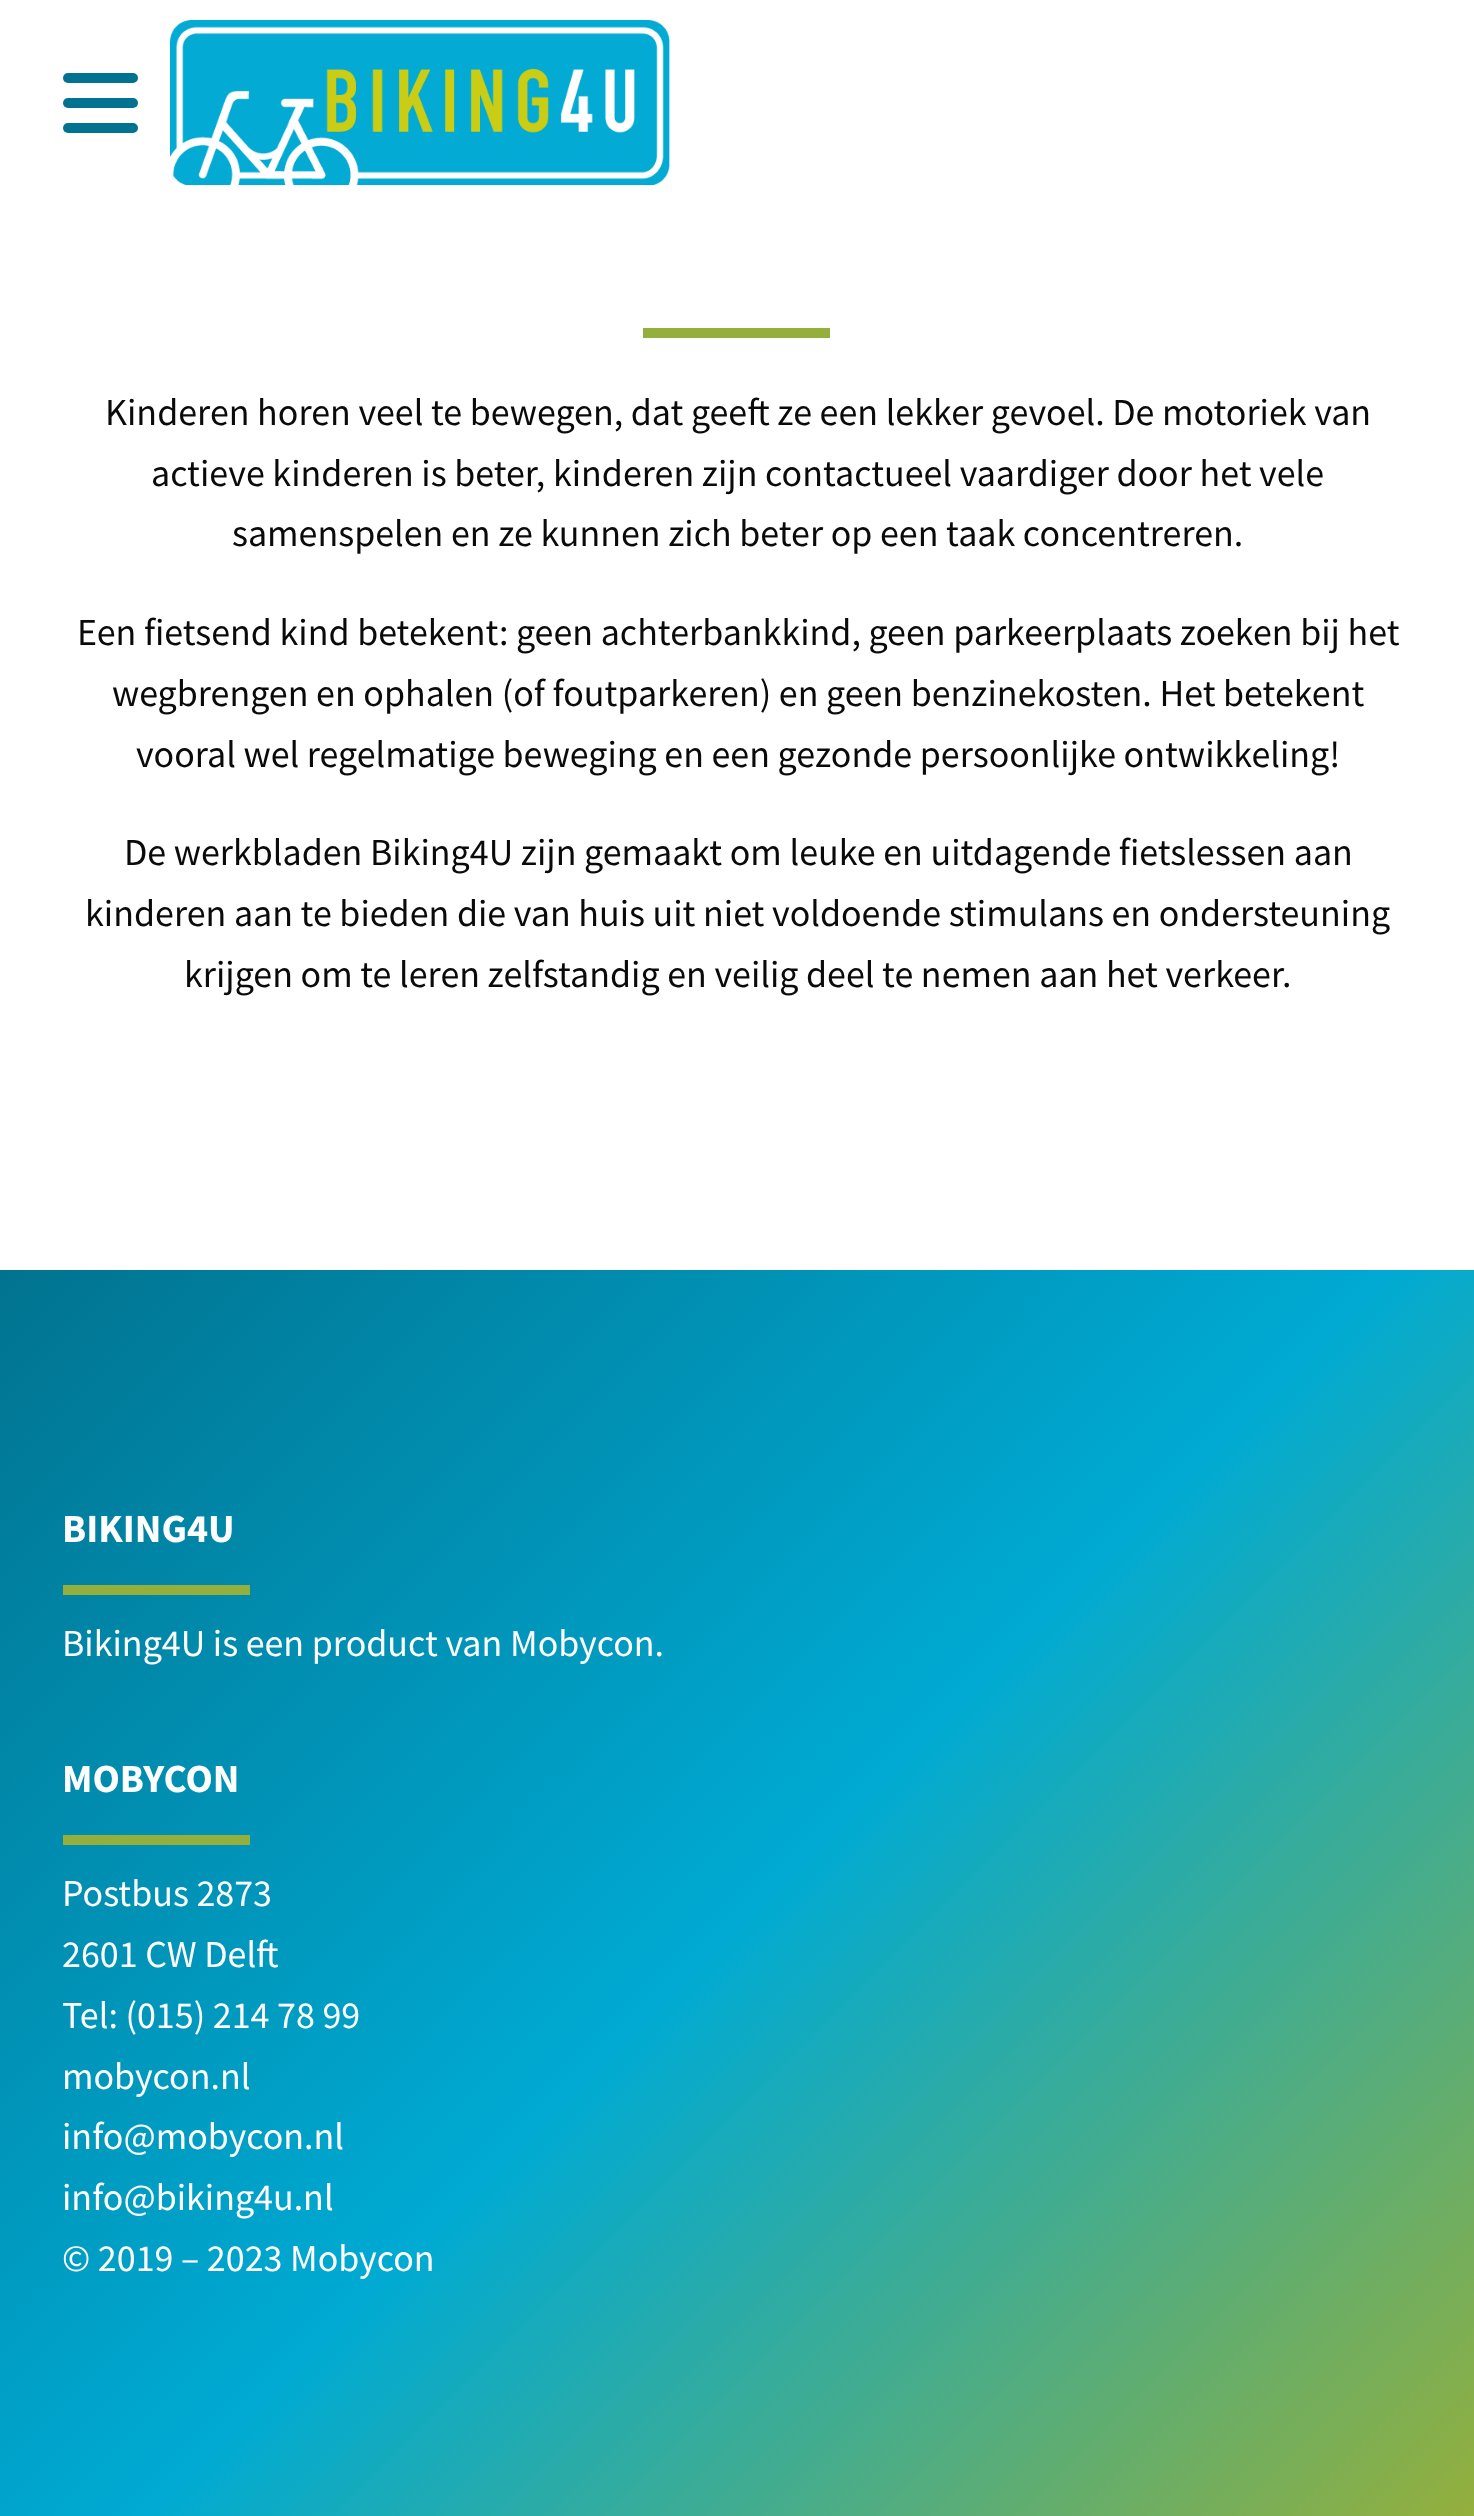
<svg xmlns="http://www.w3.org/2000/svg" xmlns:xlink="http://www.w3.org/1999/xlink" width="1474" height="2516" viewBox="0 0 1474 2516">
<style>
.cls-1{font:38px Source Sans Pro;fill:#0a0a0a}
.cls-2{font:bold 40px Source Sans Pro;fill:#fefefe}
.cls-3{font:38px Source Sans Pro;fill:#fefefe}
</style>
<defs>
<linearGradient id="g1" gradientUnits="userSpaceOnUse" x1="57" y1="1213" x2="1418" y2="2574"><stop offset="0" stop-color="#017390"/><stop offset="0.51" stop-color="#00aad3"/><stop offset="1" stop-color="#94af3c"/></linearGradient>
</defs>
<rect width="100%" height="100%" fill="#ffffff"/>
<rect fill="#017390" x="63" y="73" width="75" height="10" rx="5"/>
<rect fill="#017390" x="63" y="98" width="75" height="10" rx="5"/>
<rect fill="#017390" x="63" y="123" width="75" height="10" rx="5"/>
<image xlink:href="image0.png" x="170" y="20" width="500" height="165"/>
<rect fill="#94af3c" x="643" y="328" width="187" height="10"/>
<rect fill="url(#g1)" x="0" y="1270" width="1474" height="1246"/>
<rect fill="#94af3c" x="63" y="1585" width="187" height="10"/>
<rect fill="#94af3c" x="63" y="1835" width="187" height="10"/>
<text class="cls-1" x="105" y="425">Kinderen horen veel te bewegen, dat geeft ze een lekker gevoel. De motoriek van</text>
<text class="cls-1" x="151" y="486">actieve kinderen is beter, kinderen zijn contactueel vaardiger door het vele</text>
<text class="cls-1" x="232" y="546">samenspelen en ze kunnen zich beter op een taak concentreren.</text>
<text class="cls-1" x="77" y="645">Een fietsend kind betekent: geen achterbankkind, geen parkeerplaats zoeken bij het</text>
<text class="cls-1" x="112" y="706">wegbrengen en ophalen (of foutparkeren) en geen benzinekosten. Het betekent</text>
<text class="cls-1" x="136" y="767">vooral wel regelmatige beweging en een gezonde persoonlijke ontwikkeling!</text>
<text class="cls-1" x="124" y="865">De werkbladen Biking4U zijn gemaakt om leuke en uitdagende fietslessen aan</text>
<text class="cls-1" x="85" y="926">kinderen aan te bieden die van huis uit niet voldoende stimulans en ondersteuning</text>
<text class="cls-1" x="184" y="987">krijgen om te leren zelfstandig en veilig deel te nemen aan het verkeer.</text>
<text class="cls-2" x="62" y="1542">BIKING4U</text>
<text class="cls-3" x="62" y="1656">Biking4U is een product van</text>
<text class="cls-3" x="510" y="1656">Mobycon.</text>
<text class="cls-2" x="62" y="1792">MOBYCON</text>
<text class="cls-3"><tspan x="62" y="1906">Postbus 2873</tspan><tspan x="62" y="1967">2601 CW Delft</tspan><tspan x="62" y="2028">Tel: (015) 214 78 99</tspan><tspan x="62" y="2089">mobycon.nl</tspan><tspan x="62" y="2149">info@mobycon.nl</tspan><tspan x="62" y="2210">info@biking4u.nl</tspan><tspan x="62" y="2271">© 2019 – 2023 Mobycon</tspan></text>
</svg>
